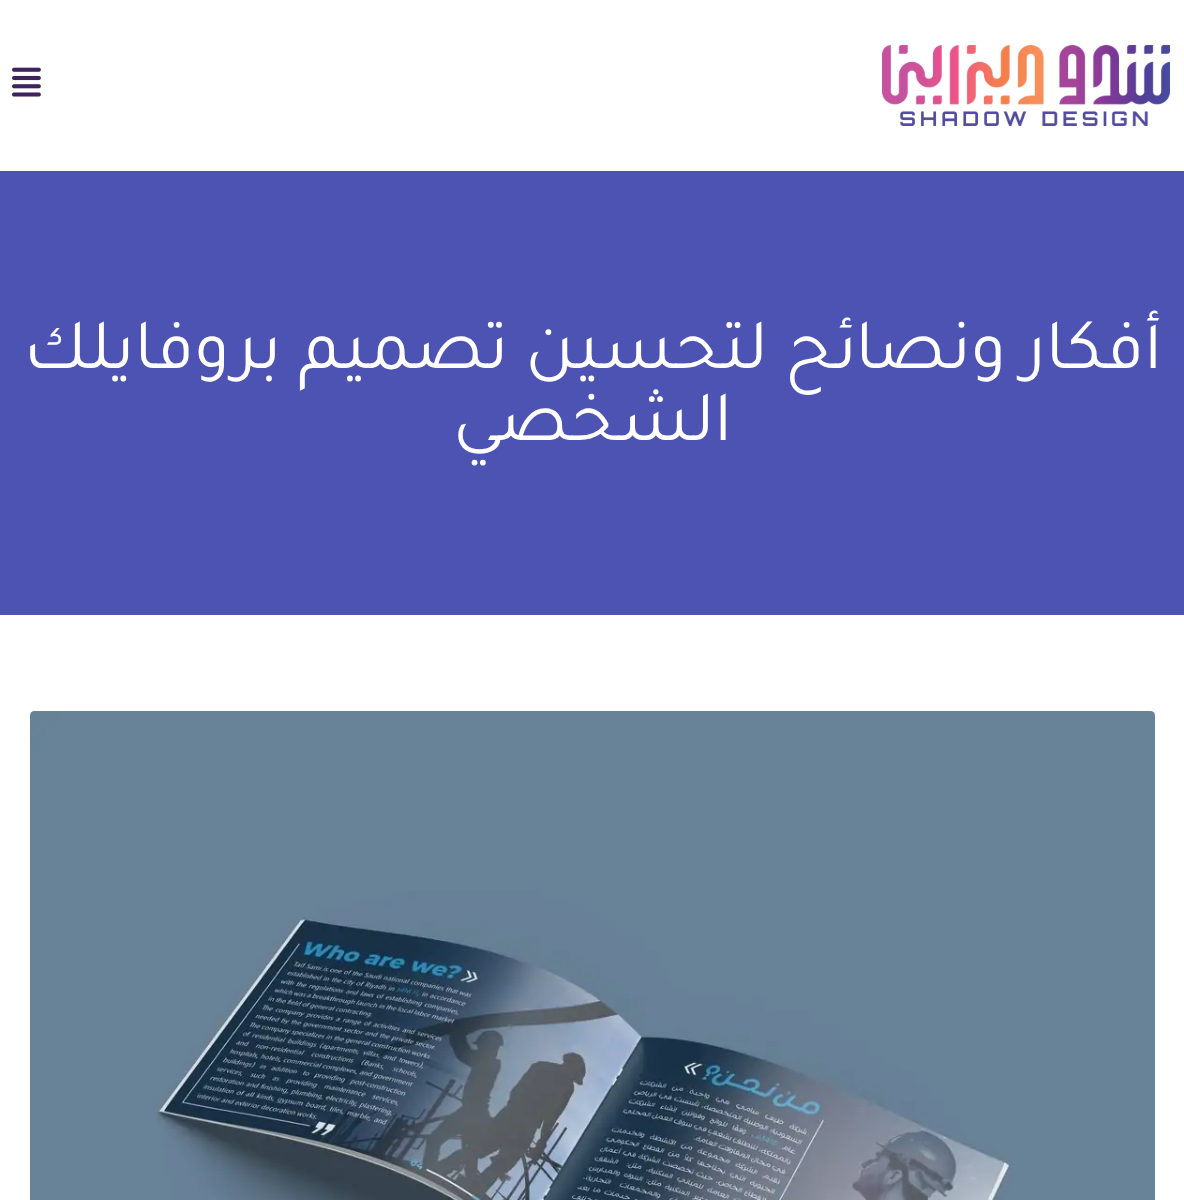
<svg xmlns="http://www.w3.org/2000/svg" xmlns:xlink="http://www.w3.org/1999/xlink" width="1184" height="1200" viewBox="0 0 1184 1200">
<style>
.cls-1{font:72px Tajawal;direction:rtl;fill:#ffffff}
</style>
<rect width="100%" height="100%" fill="#ffffff"/>
<image xlink:href="image0.png" x="882" y="45" width="288" height="81"/>
<image xlink:href="image1.png" x="12" y="67" width="29" height="30"/>
<rect fill="#4c53b3" x="0" y="171" width="1184" height="444"/>
<image xlink:href="image2.png" x="30" y="711" width="1125" height="489"/>
<text class="cls-1" x="1162" y="368">أفكار ونصائح لتحسين تصميم بروفايلك</text>
<text class="cls-1" x="732" y="440">الشخصي</text>
</svg>
